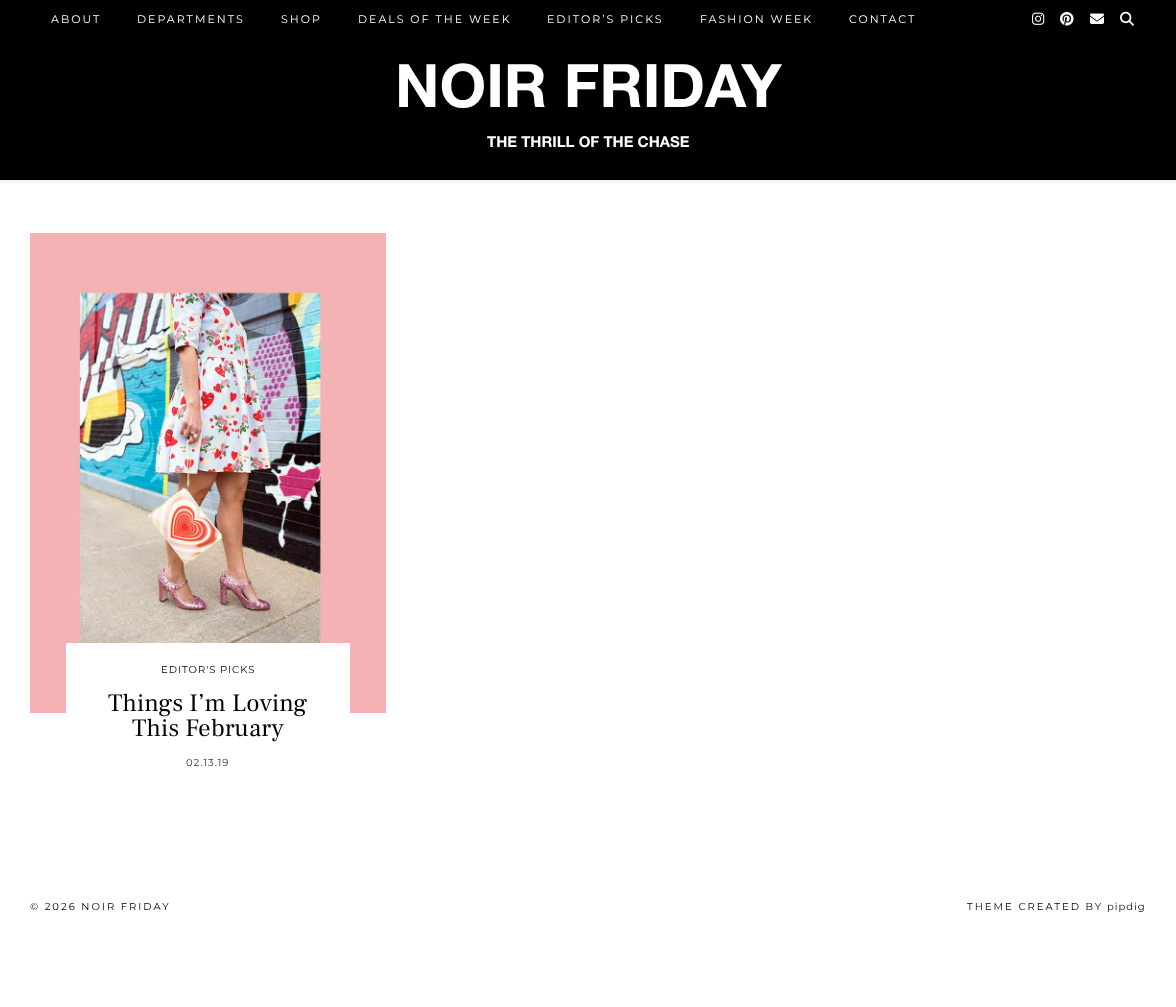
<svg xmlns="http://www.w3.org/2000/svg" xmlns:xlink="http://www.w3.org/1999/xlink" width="1176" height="1007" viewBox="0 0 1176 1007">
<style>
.cls-1{font:100 11px Montserrat;letter-spacing:2px;fill:#ffffff}
.cls-2{font:bold 60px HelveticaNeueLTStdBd;fill:#ffffff}
.cls-3{font:bold 15px HelveticaNeueLTStdBd;fill:#ffffff}
.cls-4{font:100 10px Montserrat;letter-spacing:1px;fill:#000000}
.cls-5{font:25px Frank Ruhl Libre;fill:#000000}
.cls-6{font:100 10px Montserrat;letter-spacing:1px;fill:#333333}
.cls-7{font:100 10px Montserrat;letter-spacing:2px;fill:#000000}
</style>
<rect width="100%" height="100%" fill="#ffffff"/>
<rect fill="#000000" x="0" y="0" width="1176" height="180"/>
<image xlink:href="image0.png" x="1032" y="12" width="13" height="13"/>
<image xlink:href="image1.png" x="1060" y="12" width="14" height="14"/>
<image xlink:href="image2.png" x="1090" y="13" width="14" height="11"/>
<image xlink:href="image3.png" x="1120" y="11" width="14" height="15"/>
<rect fill="#f5f5f5" x="0" y="180" width="1176" height="3"/>
<image xlink:href="image4.png" x="30" y="233" width="356" height="480"/>
<rect fill="#ffffff" x="66" y="643" width="284" height="70"/>
<text class="cls-1" x="51" y="23">ABOUT</text>
<text class="cls-1" x="137" y="23">DEPARTMENTS</text>
<text class="cls-1" x="281" y="23">SHOP</text>
<text class="cls-1" x="358" y="23">DEALS OF THE WEEK</text>
<text class="cls-1" x="547" y="23">EDITOR’S PICKS</text>
<text class="cls-1" x="700" y="23">FASHION WEEK</text>
<text class="cls-1" x="849" y="23">CONTACT</text>
<text class="cls-2" x="395" y="107">NOIR FRIDAY</text>
<text class="cls-3" x="487" y="147">THE THRILL OF THE CHASE</text>
<text class="cls-4" x="161" y="673">EDITOR'S PICKS</text>
<text class="cls-5" x="108" y="711">Things I’m Loving</text>
<text class="cls-5" x="132" y="736">This February</text>
<text class="cls-6" x="186" y="766">02.13.19</text>
<text class="cls-7" x="30" y="910">© 2026 NOIR FRIDAY</text>
<text class="cls-7" x="967" y="910">THEME CREATED BY</text>
<text class="cls-4" x="1107" y="910">pipdig</text>
</svg>
